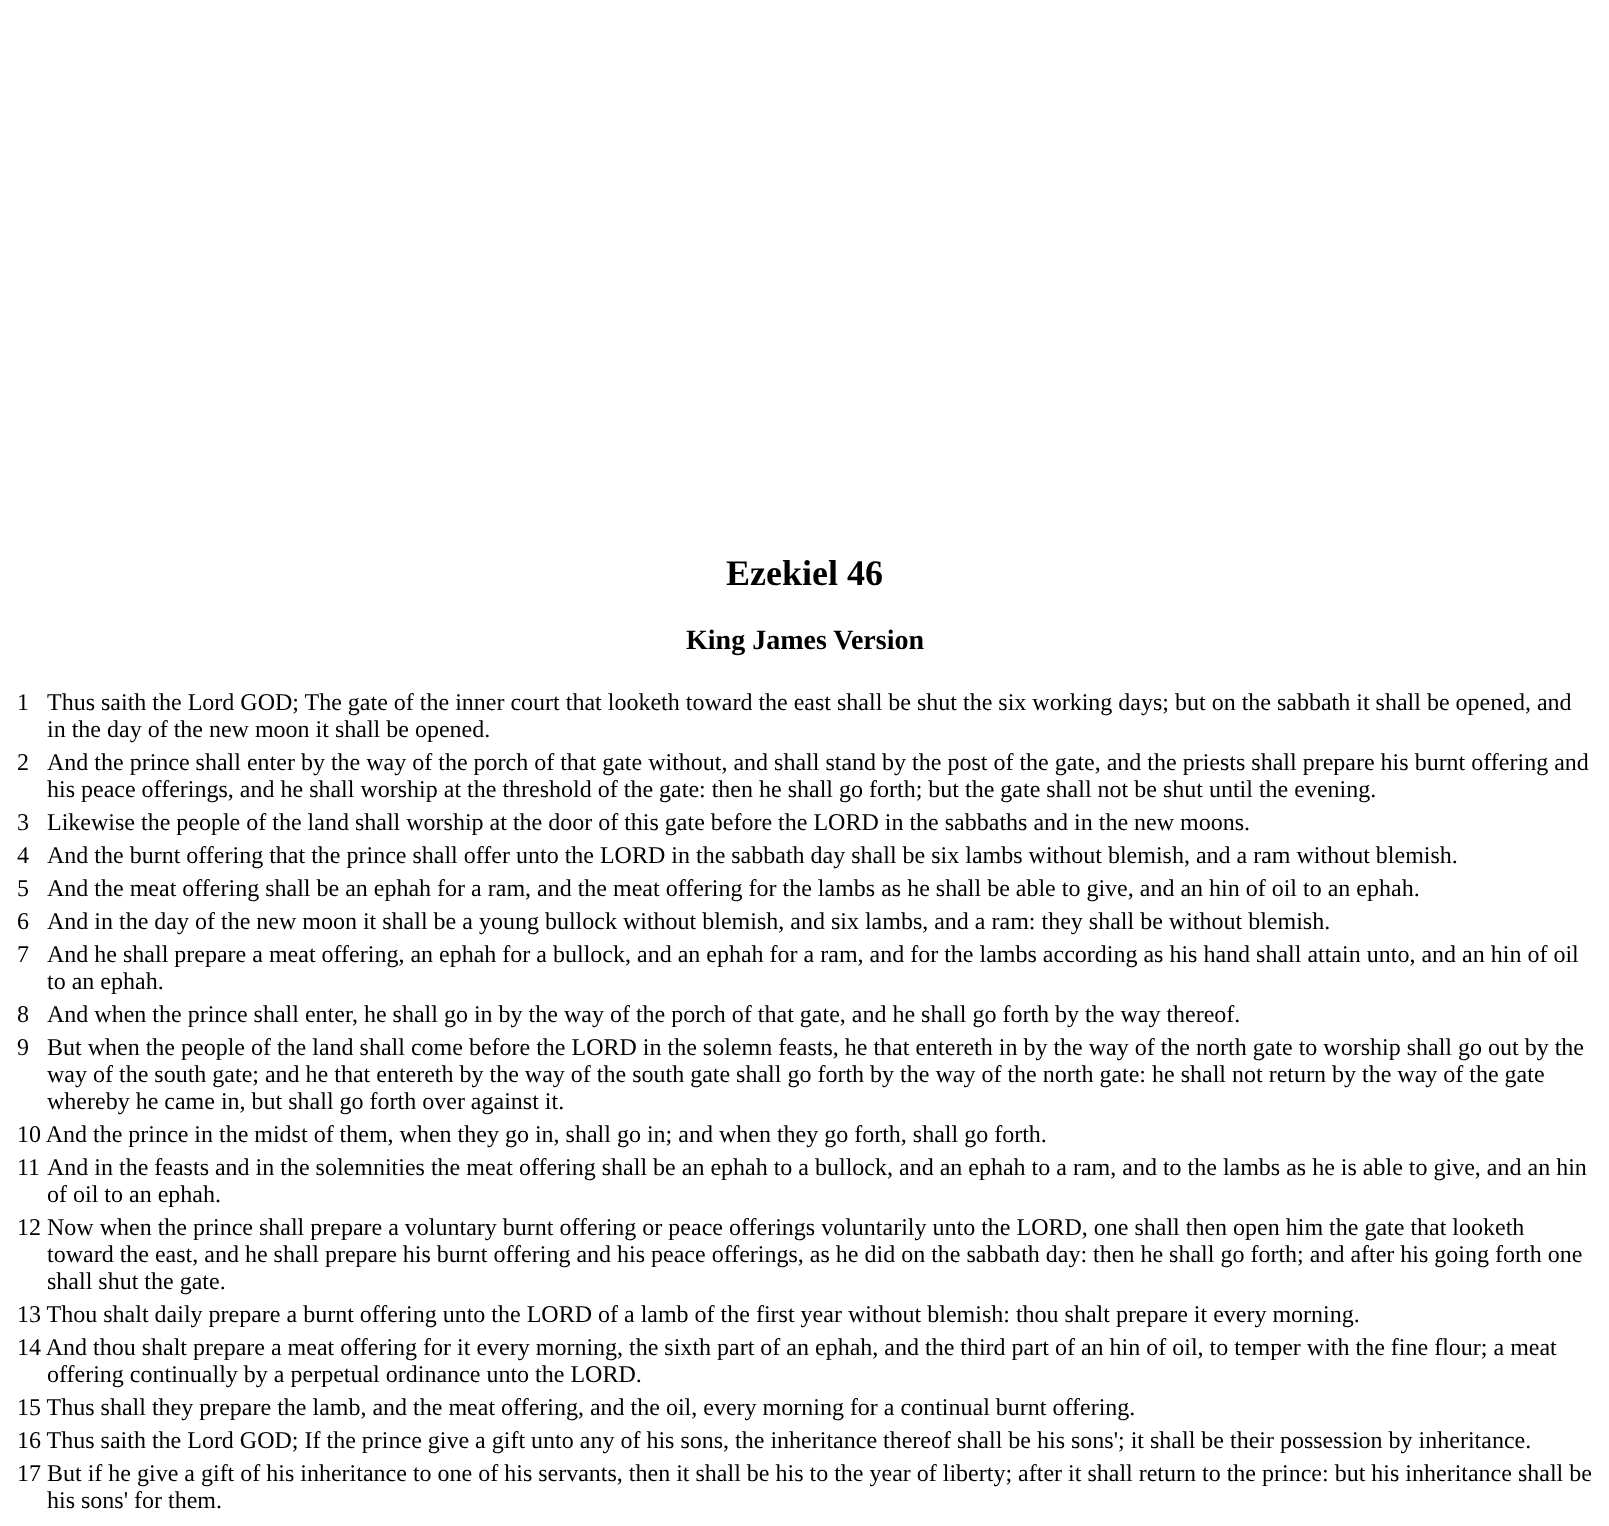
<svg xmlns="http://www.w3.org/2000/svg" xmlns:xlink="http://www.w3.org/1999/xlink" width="1609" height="1526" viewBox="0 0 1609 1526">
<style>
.cls-1{font:bold 36px Liberation Serif;fill:#000000}
.cls-2{font:bold 28px Liberation Serif;fill:#000000}
.cls-3{font:24px Liberation Serif;fill:#000000}
</style>
<rect width="100%" height="100%" fill="#ffffff"/>
<text class="cls-1" x="726" y="585">Ezekiel 46</text>
<text class="cls-2" x="686" y="649">King James Version</text>
<text class="cls-3" x="17" y="710">1</text>
<text class="cls-3"><tspan x="47" y="710">Thus saith the Lord GOD; The gate of the inner court that looketh toward the east shall be shut the six working days; but on the sabbath it shall be opened, and</tspan><tspan x="47" y="737">in the day of the new moon it shall be opened.</tspan></text>
<text class="cls-3" x="17" y="770">2</text>
<text class="cls-3"><tspan x="47" y="770">And the prince shall enter by the way of the porch of that gate without, and shall stand by the post of the gate, and the priests shall prepare his burnt offering and</tspan><tspan x="47" y="797">his peace offerings, and he shall worship at the threshold of the gate: then he shall go forth; but the gate shall not be shut until the evening.</tspan></text>
<text class="cls-3" x="17" y="830">3</text>
<text class="cls-3" x="47" y="830">Likewise the people of the land shall worship at the door of this gate before the LORD in the sabbaths and in the new moons.</text>
<text class="cls-3" x="17" y="863">4</text>
<text class="cls-3" x="47" y="863">And the burnt offering that the prince shall offer unto the LORD in the sabbath day shall be six lambs without blemish, and a ram without blemish.</text>
<text class="cls-3" x="17" y="896">5</text>
<text class="cls-3" x="47" y="896">And the meat offering shall be an ephah for a ram, and the meat offering for the lambs as he shall be able to give, and an hin of oil to an ephah.</text>
<text class="cls-3" x="17" y="929">6</text>
<text class="cls-3" x="47" y="929">And in the day of the new moon it shall be a young bullock without blemish, and six lambs, and a ram: they shall be without blemish.</text>
<text class="cls-3" x="17" y="962">7</text>
<text class="cls-3"><tspan x="47" y="962">And he shall prepare a meat offering, an ephah for a bullock, and an ephah for a ram, and for the lambs according as his hand shall attain unto, and an hin of oil</tspan><tspan x="47" y="989">to an ephah.</tspan></text>
<text class="cls-3" x="17" y="1022">8</text>
<text class="cls-3" x="47" y="1022">And when the prince shall enter, he shall go in by the way of the porch of that gate, and he shall go forth by the way thereof.</text>
<text class="cls-3" x="17" y="1055">9</text>
<text class="cls-3"><tspan x="47" y="1055">But when the people of the land shall come before the LORD in the solemn feasts, he that entereth in by the way of the north gate to worship shall go out by the</tspan><tspan x="47" y="1082">way of the south gate; and he that entereth by the way of the south gate shall go forth by the way of the north gate: he shall not return by the way of the gate</tspan><tspan x="47" y="1109">whereby he came in, but shall go forth over against it.</tspan></text>
<text class="cls-3"><tspan x="17" y="1142">10 And the prince in the midst of them, when they go in, shall go in; and when they go forth, shall go forth.</tspan><tspan x="17" y="1175">11</tspan></text>
<text class="cls-3"><tspan x="47" y="1175">And in the feasts and in the solemnities the meat offering shall be an ephah to a bullock, and an ephah to a ram, and to the lambs as he is able to give, and an hin</tspan><tspan x="47" y="1202">of oil to an ephah.</tspan></text>
<text class="cls-3" x="17" y="1235">12 Now when the prince shall prepare a voluntary burnt offering or peace offerings voluntarily unto the LORD, one shall then open him the gate that looketh</text>
<text class="cls-3"><tspan x="47" y="1262">toward the east, and he shall prepare his burnt offering and his peace offerings, as he did on the sabbath day: then he shall go forth; and after his going forth one</tspan><tspan x="47" y="1289">shall shut the gate.</tspan></text>
<text class="cls-3"><tspan x="17" y="1322">13 Thou shalt daily prepare a burnt offering unto the LORD of a lamb of the first year without blemish: thou shalt prepare it every morning.</tspan><tspan x="17" y="1355">14 And thou shalt prepare a meat offering for it every morning, the sixth part of an ephah, and the third part of an hin of oil, to temper with the fine flour; a meat</tspan></text>
<text class="cls-3" x="47" y="1382">offering continually by a perpetual ordinance unto the LORD.</text>
<text class="cls-3"><tspan x="17" y="1415">15 Thus shall they prepare the lamb, and the meat offering, and the oil, every morning for a continual burnt offering.</tspan><tspan x="17" y="1448">16 Thus saith the Lord GOD; If the prince give a gift unto any of his sons, the inheritance thereof shall be his sons'; it shall be their possession by inheritance.</tspan><tspan x="17" y="1481">17 But if he give a gift of his inheritance to one of his servants, then it shall be his to the year of liberty; after it shall return to the prince: but his inheritance shall be</tspan></text>
<text class="cls-3" x="47" y="1508">his sons' for them.</text>
</svg>
